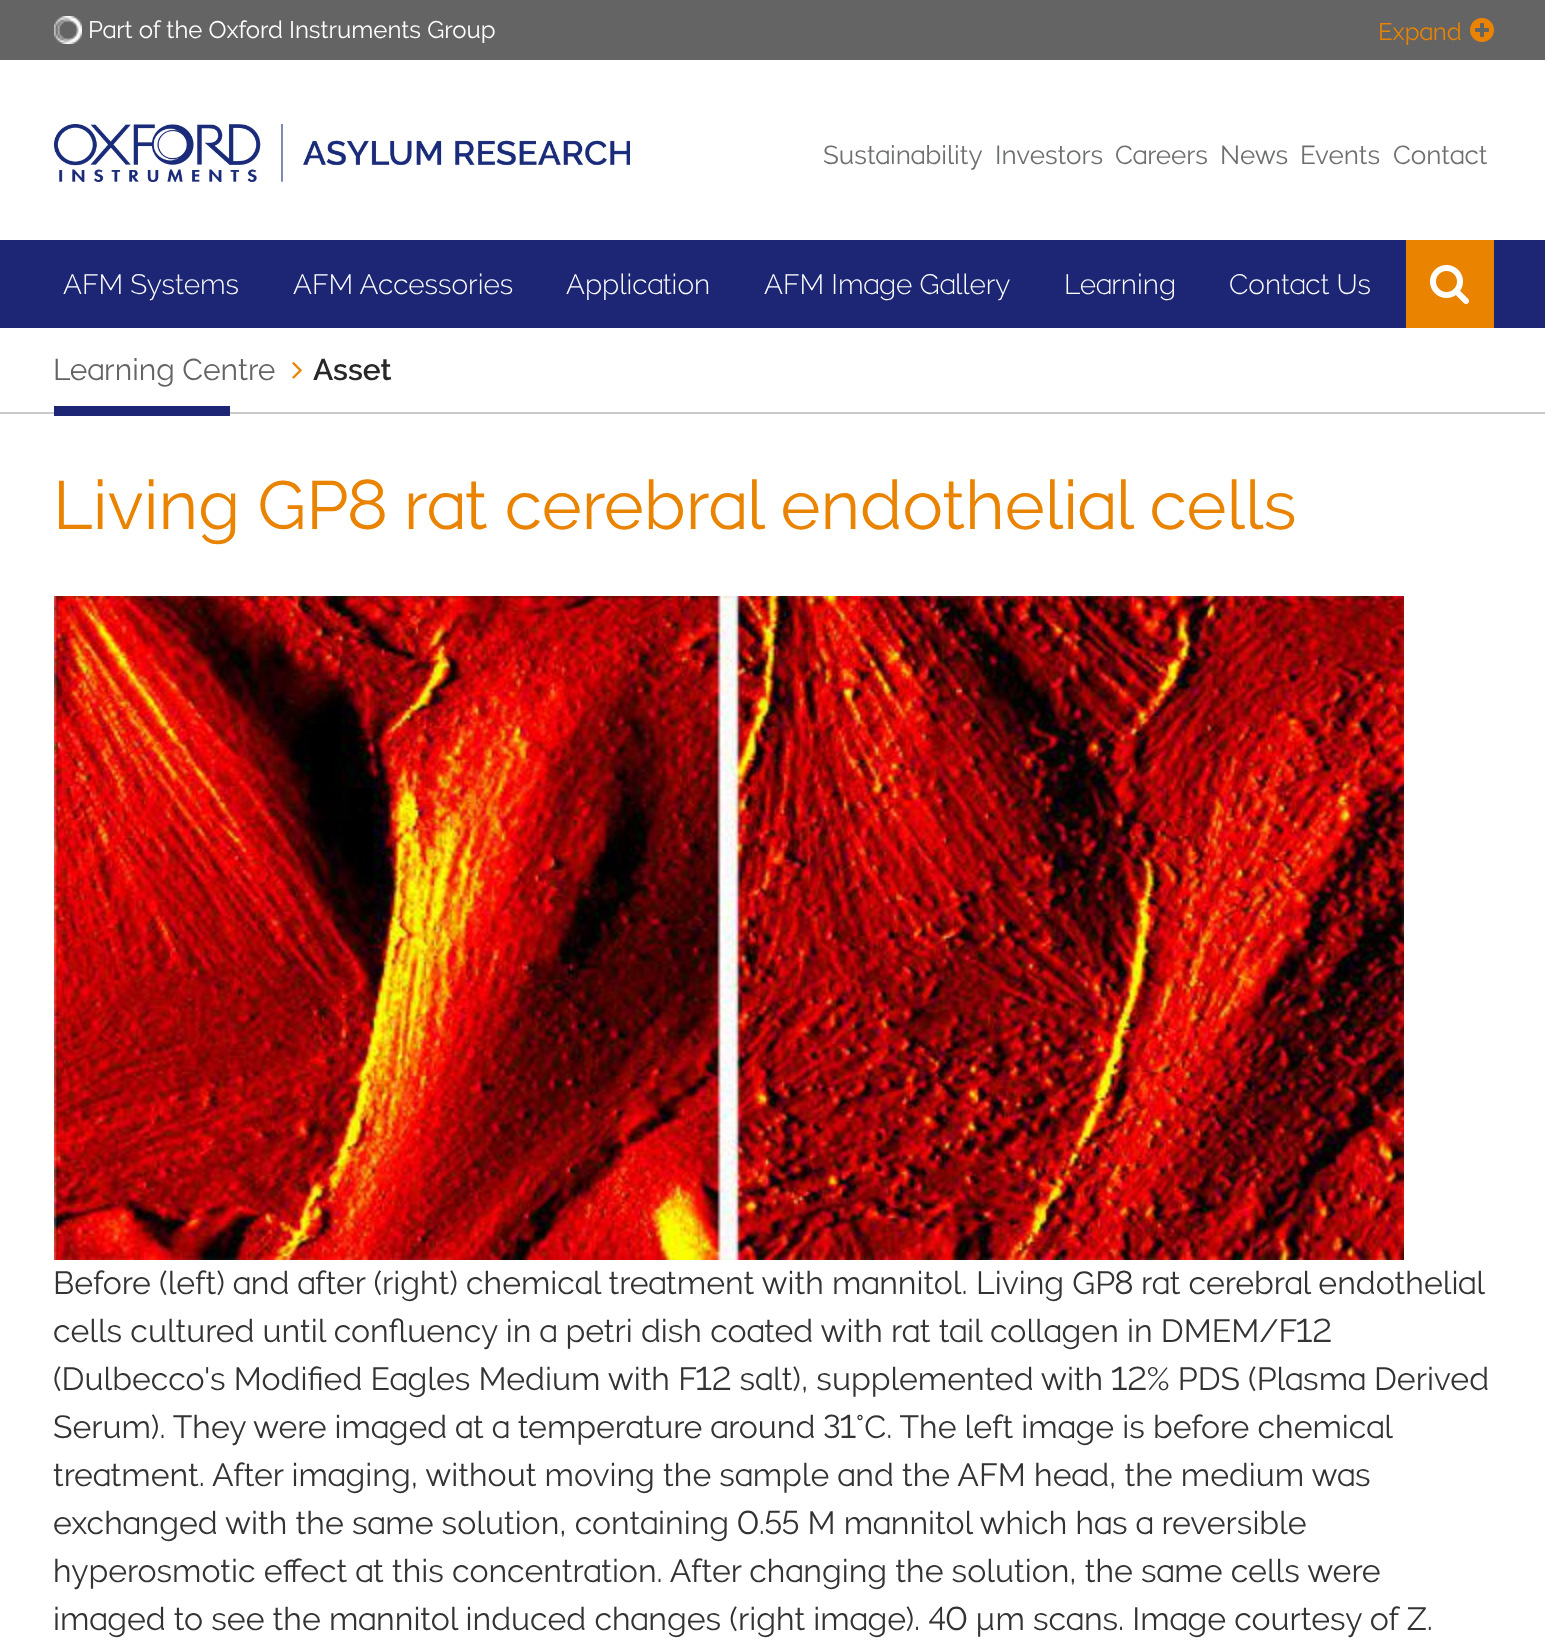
<svg xmlns="http://www.w3.org/2000/svg" xmlns:xlink="http://www.w3.org/1999/xlink" width="1545" height="1641" viewBox="0 0 1545 1641">
<style>
.cls-1{font:24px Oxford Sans;fill:#ffffff}
.cls-2{font:24px Oxford Sans;fill:#e98300}
.cls-3{font:26px Oxford Sans;fill:#6d6f71}
.cls-4{font:300 28px Oxford Sans;fill:#ffffff}
.cls-5{font:30px Oxford Sans;fill:#646464}
.cls-6{font:600 30px Oxford Sans;fill:#282828}
.cls-7{font:68px Oxford Sans;fill:#e98300}
.cls-8{font:32px Oxford Sans;fill:#333333}
</style>
<rect width="100%" height="100%" fill="#ffffff"/>
<rect fill="#646464" x="0" y="0" width="1545" height="60"/>
<image xlink:href="image0.png" x="54" y="16" width="28" height="28"/>
<image xlink:href="image1.png" x="1470" y="18" width="24" height="24"/>
<image xlink:href="image2.png" x="54" y="124" width="576" height="58"/>
<rect fill="#1c2674" x="0" y="240" width="1545" height="88"/>
<rect fill="#e98300" x="1406" y="240" width="88" height="88"/>
<image xlink:href="image3.png" x="1430" y="265" width="39" height="39"/>
<rect fill="#c9c9c9" x="0" y="412" width="1545" height="2"/>
<rect fill="#1c2674" x="54" y="406" width="176" height="10"/>
<image xlink:href="image4.png" x="292" y="362" width="10" height="17"/>
<image xlink:href="image5.png" x="54" y="596" width="1350" height="664"/>
<text class="cls-1" x="88" y="38">Part of the Oxford Instruments Group</text>
<text class="cls-2" x="1378" y="40">Expand</text>
<text class="cls-3" x="823" y="164">Sustainability</text>
<text class="cls-3" x="995" y="164">Investors</text>
<text class="cls-3" x="1115" y="164">Careers</text>
<text class="cls-3" x="1220" y="164">News</text>
<text class="cls-3" x="1300" y="164">Events</text>
<text class="cls-3" x="1393" y="164">Contact</text>
<text class="cls-4" x="63" y="294">AFM Systems</text>
<text class="cls-4" x="293" y="294">AFM Accessories</text>
<text class="cls-4" x="566" y="294">Application</text>
<text class="cls-4" x="764" y="294">AFM Image Gallery</text>
<text class="cls-4" x="1064" y="294">Learning</text>
<text class="cls-4" x="1229" y="294">Contact Us</text>
<text class="cls-5" x="53" y="380">Learning Centre</text>
<text class="cls-6" x="313" y="380">Asset</text>
<text class="cls-7" x="53" y="529">Living GP8 rat cerebral endothelial cells</text>
<text class="cls-8" x="53" y="1294">Before (left) and after (right) chemical treatment with mannitol.</text>
<text class="cls-8" x="976" y="1294">Living GP8 rat cerebral endothelial</text>
<text class="cls-8"><tspan x="53" y="1342">cells cultured until confluency in a petri dish coated with rat tail collagen in DMEM/F12</tspan><tspan x="53" y="1390">(Dulbecco's Modified Eagles Medium with F12 salt), supplemented with 12% PDS (Plasma Derived</tspan><tspan x="53" y="1438">Serum). They were imaged at a temperature around 31°C. The left image is before chemical</tspan><tspan x="53" y="1486">treatment. After imaging, without moving the sample and the AFM head, the medium was</tspan><tspan x="53" y="1534">exchanged with the same solution, containing 0.55 M mannitol which has a reversible</tspan><tspan x="53" y="1582">hyperosmotic effect at this concentration. After changing the solution, the same cells were</tspan><tspan x="53" y="1630">imaged to see the mannitol induced changes (right image). 40 µm scans. Image courtesy of Z.</tspan></text>
</svg>
